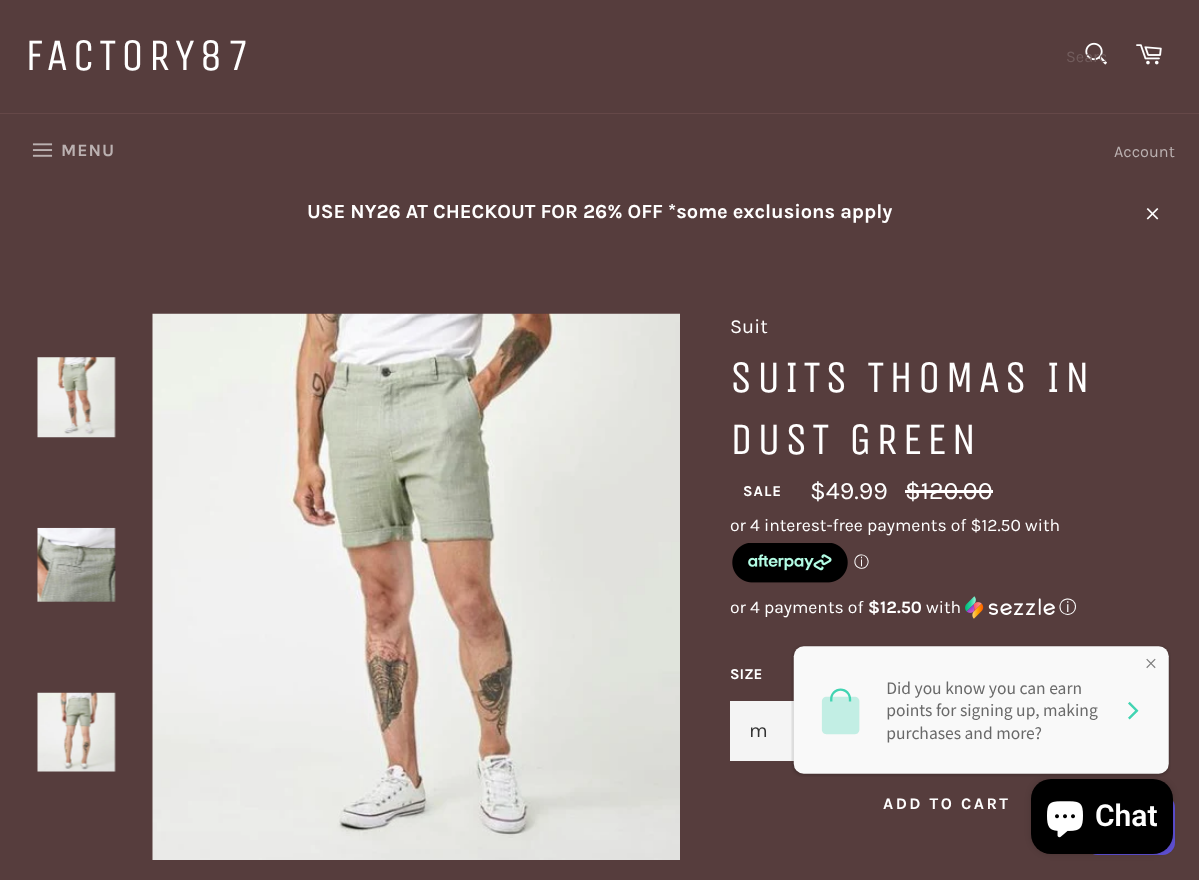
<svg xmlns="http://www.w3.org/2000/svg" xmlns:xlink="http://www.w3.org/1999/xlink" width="1199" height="880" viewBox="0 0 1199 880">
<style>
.cls-1{font:45px Unica One;letter-spacing:4.5px;fill:#ffffff}
.cls-2{font:16.25px Karla;fill:#715c5c}
.cls-3{font:bold 17.5px Karla;letter-spacing:1px;fill:#bbb1b1}
.cls-4{font:16.25px Karla;fill:#bbb1b1}
.cls-5{font:bold 20px Karla;fill:#ffffff}
.cls-6{font:20px Karla;fill:#ffffff}
.cls-7{font:bold 15px Karla;letter-spacing:1px;fill:#ffffff}
.cls-8{font:25px Karla;fill:#ffffff}
.cls-9{font:17.5px Karla;fill:#ffffff}
.cls-10{font:500 15px WenQuanYi Zen Hei;fill:#ffffff}
.cls-11{font:bold 17.5px Karla;fill:#ffffff}
.cls-12{font:500 17.5px WenQuanYi Zen Hei;fill:#ffffff}
.cls-13{font:bold 15px Karla;fill:#ffffff}
.cls-14{font:20px Karla;fill:#333333}
.cls-15{font:bold 16.25px Karla;letter-spacing:2.5px;fill:#ffffff}
.cls-16{font:600 30px Roboto;fill:#ffffff}
</style>
<defs>
<clipPath id="clip1"><rect x="1066" y="46" width="40" height="19"/></clipPath>
</defs>
<rect width="100%" height="100%" fill="#563d3d"/>
<image xlink:href="image0.png" x="1085" y="42" width="22" height="23"/>
<image xlink:href="image1.png" x="1136" y="44" width="26" height="21"/>
<rect fill="#654848" x="0" y="113" width="1199" height="1"/>
<image xlink:href="image2.png" x="32" y="143" width="21" height="14"/>
<image xlink:href="image3.png" x="1146" y="208" width="13" height="12"/>
<image xlink:href="image4.png" x="37" y="357" width="79" height="81"/>
<image xlink:href="image5.png" x="37" y="527" width="79" height="75"/>
<image xlink:href="image6.png" x="37" y="692" width="79" height="80"/>
<image xlink:href="image7.png" x="152" y="313" width="528" height="547"/>
<rect fill="#ffffff" x="905" y="490" width="88" height="3"/>
<image xlink:href="image8.png" x="732" y="543" width="116" height="40"/>
<image xlink:href="image9.png" x="965" y="596" width="90" height="23"/>
<rect fill="#f4f4f4" x="730" y="701" width="64" height="60"/>
<image xlink:href="image10.png" x="791" y="645" width="380" height="132"/>
<image xlink:href="image11.png" x="1093" y="801" width="82" height="54"/>
<rect fill="#000000" fill-opacity="0.15" filter="blur(3px)" x="1031" y="779" width="142" height="75" rx="20"/>
<rect fill="#000000" x="1031" y="779" width="142" height="75" rx="20"/>
<image xlink:href="image12.png" x="1047" y="801" width="36" height="37"/>
<text class="cls-1" x="25" y="70">FACTORY87</text>
<g clip-path="url(#clip1)">
<text class="cls-2" x="1066" y="62">Searc</text>
</g>
<text class="cls-3" x="61" y="156">MENU</text>
<text class="cls-4" x="1114" y="157">Account</text>
<text class="cls-5" x="307" y="218">USE NY26 AT CHECKOUT FOR 26% OFF *some exclusions apply</text>
<text class="cls-6" x="730" y="333">Suit</text>
<text class="cls-1"><tspan x="730" y="392">SUITS THOMAS IN</tspan><tspan x="730" y="454">DUST GREEN</tspan></text>
<text class="cls-7" x="743" y="496">SALE</text>
<text class="cls-8" x="810" y="499">$49.99</text>
<text class="cls-8" x="905" y="499">$120.00</text>
<text class="cls-9" x="730" y="531">or 4 interest-free payments of $12.50 with</text>
<text class="cls-10" x="854" y="567">ⓘ</text>
<text class="cls-9" x="730" y="613">or 4 payments of</text>
<text class="cls-11" x="868" y="613">$12.50</text>
<text class="cls-9" x="926" y="613">with</text>
<text class="cls-12" x="1059" y="613">ⓘ</text>
<text class="cls-13" x="730" y="679">SIZE</text>
<text class="cls-14" x="749" y="737">m</text>
<text class="cls-15" x="883" y="809">ADD TO CART</text>
<text class="cls-16" x="1095" y="826">Chat</text>
</svg>
